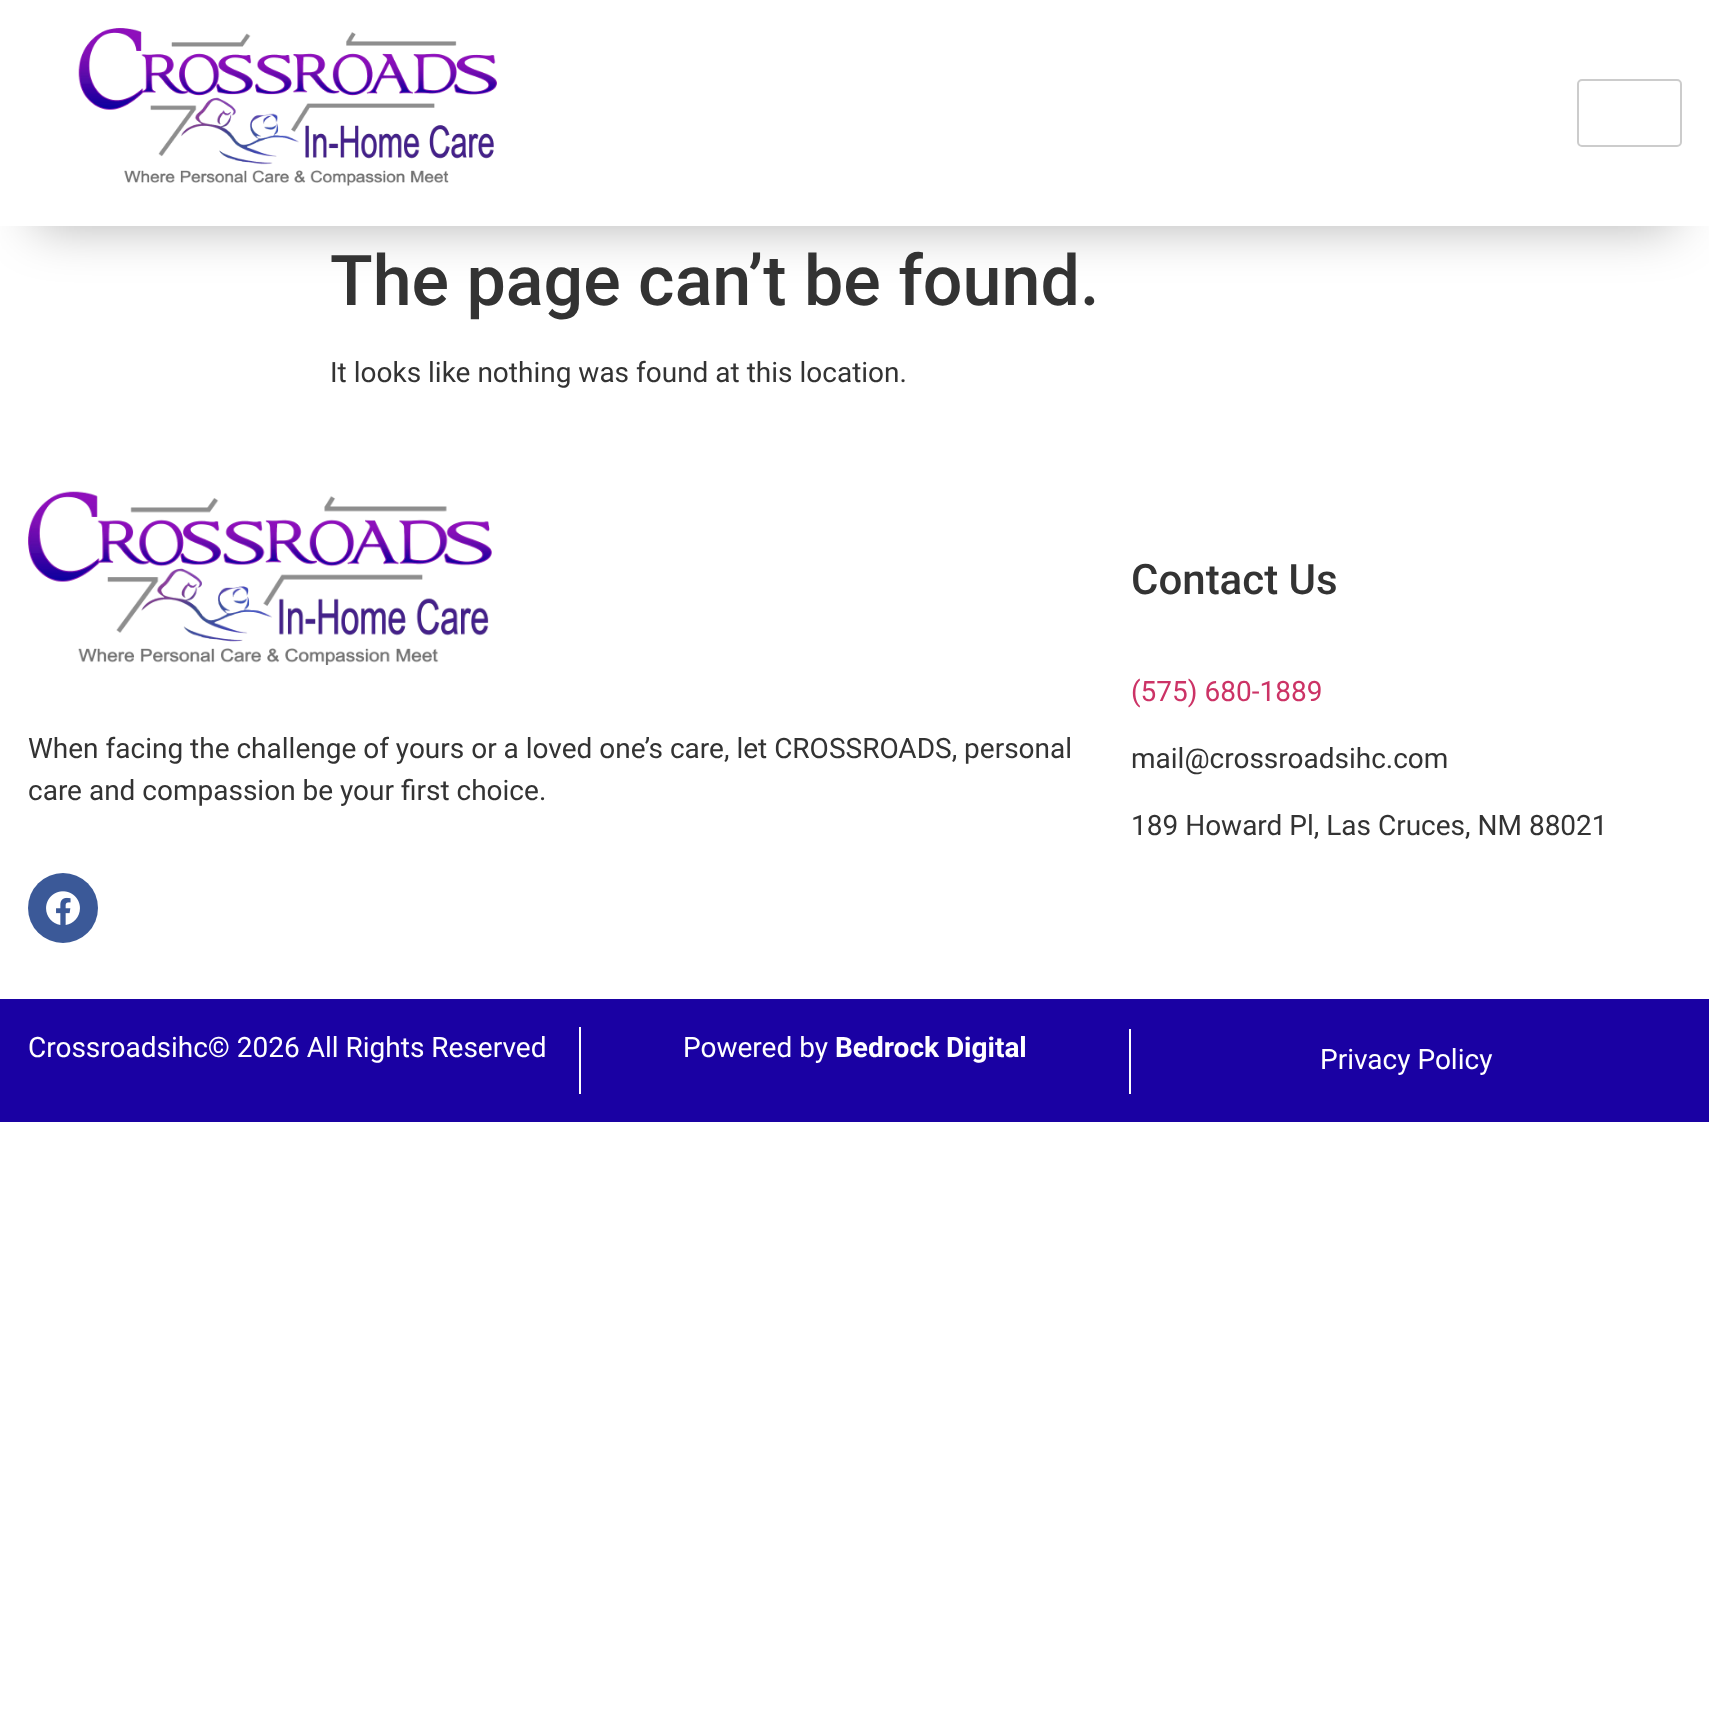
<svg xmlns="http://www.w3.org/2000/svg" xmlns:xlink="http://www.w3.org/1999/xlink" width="1709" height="1720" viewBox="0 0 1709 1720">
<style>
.cls-1{font:500 70px Roboto;fill:#333333}
.cls-2{font:28px Roboto;fill:#333333}
.cls-3{font:500 42px Roboto;fill:#333333}
.cls-4{font:28px Roboto;fill:#cc3366}
.cls-5{font:28px Roboto;fill:#ffffff}
.cls-6{font:bold 28px Roboto;fill:#ffffff}
</style>
<defs>
<clipPath id="clip1"><path d="M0 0H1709V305H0ZM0 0H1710V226H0Z" clip-rule="evenodd"/></clipPath>
</defs>
<rect width="100%" height="100%" fill="#ffffff"/>
<g clip-path="url(#clip1)">
<rect fill="#000000" fill-opacity="0.3" filter="blur(26px)" x="35" y="70" width="1640" height="156"/>
</g>
<image xlink:href="image0.png" x="78" y="28" width="419" height="158"/>
<rect fill="none" stroke="#cccccc" stroke-width="2" x="1578" y="80" width="103" height="66" rx="4"/>
<image xlink:href="image1.png" x="28" y="491" width="464" height="174"/>
<circle fill="#3b5998" cx="63" cy="908" r="35"/>
<image xlink:href="image2.png" x="46" y="891" width="34" height="34"/>
<rect fill="#1a01a3" x="0" y="999" width="1709" height="123"/>
<rect fill="#ffffff" x="1129" y="1029" width="2" height="65"/>
<rect fill="#ffffff" x="579" y="1027" width="2" height="67"/>
<text class="cls-1" x="330" y="305">The page can’t be found.</text>
<text class="cls-2" x="330" y="382">It looks like nothing was found at this location.</text>
<text class="cls-2"><tspan x="28" y="758">When facing the challenge of yours or a loved one’s care, let CROSSROADS, personal</tspan><tspan x="28" y="800">care and compassion be your first choice.</tspan></text>
<text class="cls-3" x="1131" y="594">Contact Us</text>
<text class="cls-4" x="1131" y="701">(575) 680-1889</text>
<text class="cls-2" x="1131" y="768">mail@crossroadsihc.com</text>
<text class="cls-2" x="1131" y="835">189 Howard Pl, Las Cruces, NM 88021</text>
<text class="cls-5" x="28" y="1057">Crossroadsihc© 2026 All Rights Reserved</text>
<text class="cls-5" x="683" y="1057">Powered by</text>
<text class="cls-6" x="835" y="1057">Bedrock Digital</text>
<text class="cls-5" x="1320" y="1069">Privacy Policy</text>
</svg>
